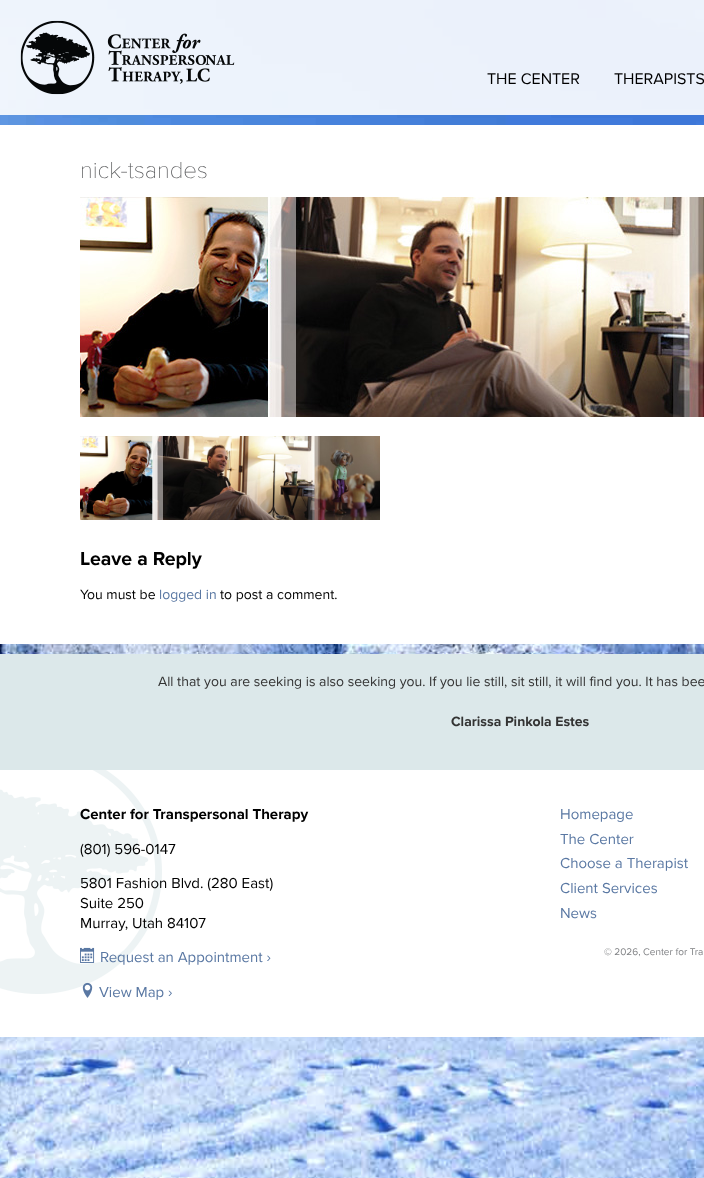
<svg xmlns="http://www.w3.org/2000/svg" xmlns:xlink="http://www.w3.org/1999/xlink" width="704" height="1178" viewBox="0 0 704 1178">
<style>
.cls-1{font:16px Proxima Nova;fill:#000000}
.cls-2{font:100 24px Proxima Nova;fill:#58595b}
.cls-3{font:bold 19.5px Proxima Nova;fill:#000000}
.cls-4{font:14px Proxima Nova;fill:#000000}
.cls-5{font:14px Proxima Nova;fill:#5a78a3}
.cls-6{font:14px Proxima Nova;fill:#333333}
.cls-7{font:bold 14px Proxima Nova;fill:#333333}
.cls-8{font:bold 15px Proxima Nova;fill:#000000}
.cls-9{font:15px Proxima Nova;fill:#000000}
.cls-10{font:15px Proxima Nova;fill:#5a78a3}
.cls-11{font:10px Proxima Nova;fill:#808285}
</style>
<rect width="100%" height="100%" fill="#ffffff"/>
<image xlink:href="image0.png" x="0" y="0" width="704" height="1178"/>
<rect fill="#ffffff" fill-opacity="0.9" x="0" y="0" width="704" height="115"/>
<image xlink:href="image1.png" x="20" y="20" width="215" height="75"/>
<rect fill="#ffffff" x="0" y="125" width="704" height="519"/>
<image xlink:href="image2.png" x="80" y="197" width="624" height="220"/>
<image xlink:href="image3.png" x="80" y="436" width="300" height="84"/>
<rect fill="#dce8ea" x="0" y="654" width="704" height="116"/>
<rect fill="#ffffff" x="0" y="770" width="704" height="267"/>
<image xlink:href="image4.png" x="0" y="770" width="162" height="224"/>
<image xlink:href="image5.png" x="80" y="947" width="15" height="16"/>
<image xlink:href="image6.png" x="82" y="982" width="11" height="16"/>
<text class="cls-1" x="487" y="84">THE CENTER</text>
<text class="cls-1" x="614" y="84">THERAPISTS</text>
<text class="cls-2" x="80" y="178">nick-tsandes</text>
<text class="cls-3" x="80" y="565">Leave a Reply</text>
<text class="cls-4" x="80" y="599">You must be</text>
<text class="cls-5" x="159" y="599">logged in</text>
<text class="cls-4" x="220" y="599">to post a comment.</text>
<text class="cls-6" x="158" y="686">All that you are seeking is also seeking you. If you lie still, sit still, it will find you. It has bee</text>
<text class="cls-7" x="451" y="726">Clarissa Pinkola Estes</text>
<text class="cls-8" x="80" y="819">Center for Transpersonal Therapy</text>
<text class="cls-9" x="80" y="854">(801) 596-0147</text>
<text class="cls-9"><tspan x="80" y="888">5801 Fashion Blvd. (280 East)</tspan><tspan x="80" y="908">Suite 250</tspan><tspan x="80" y="928">Murray, Utah 84107</tspan></text>
<text class="cls-10" x="100" y="962">Request an Appointment ›</text>
<text class="cls-10" x="99" y="997">View Map ›</text>
<text class="cls-10"><tspan x="560" y="819">Homepage</tspan><tspan x="560" y="844">The Center</tspan><tspan x="560" y="868">Choose a Therapist</tspan><tspan x="560" y="893">Client Services</tspan><tspan x="560" y="918">News</tspan></text>
<text class="cls-11" x="604" y="955">© 2026, Center for Tra</text>
</svg>
